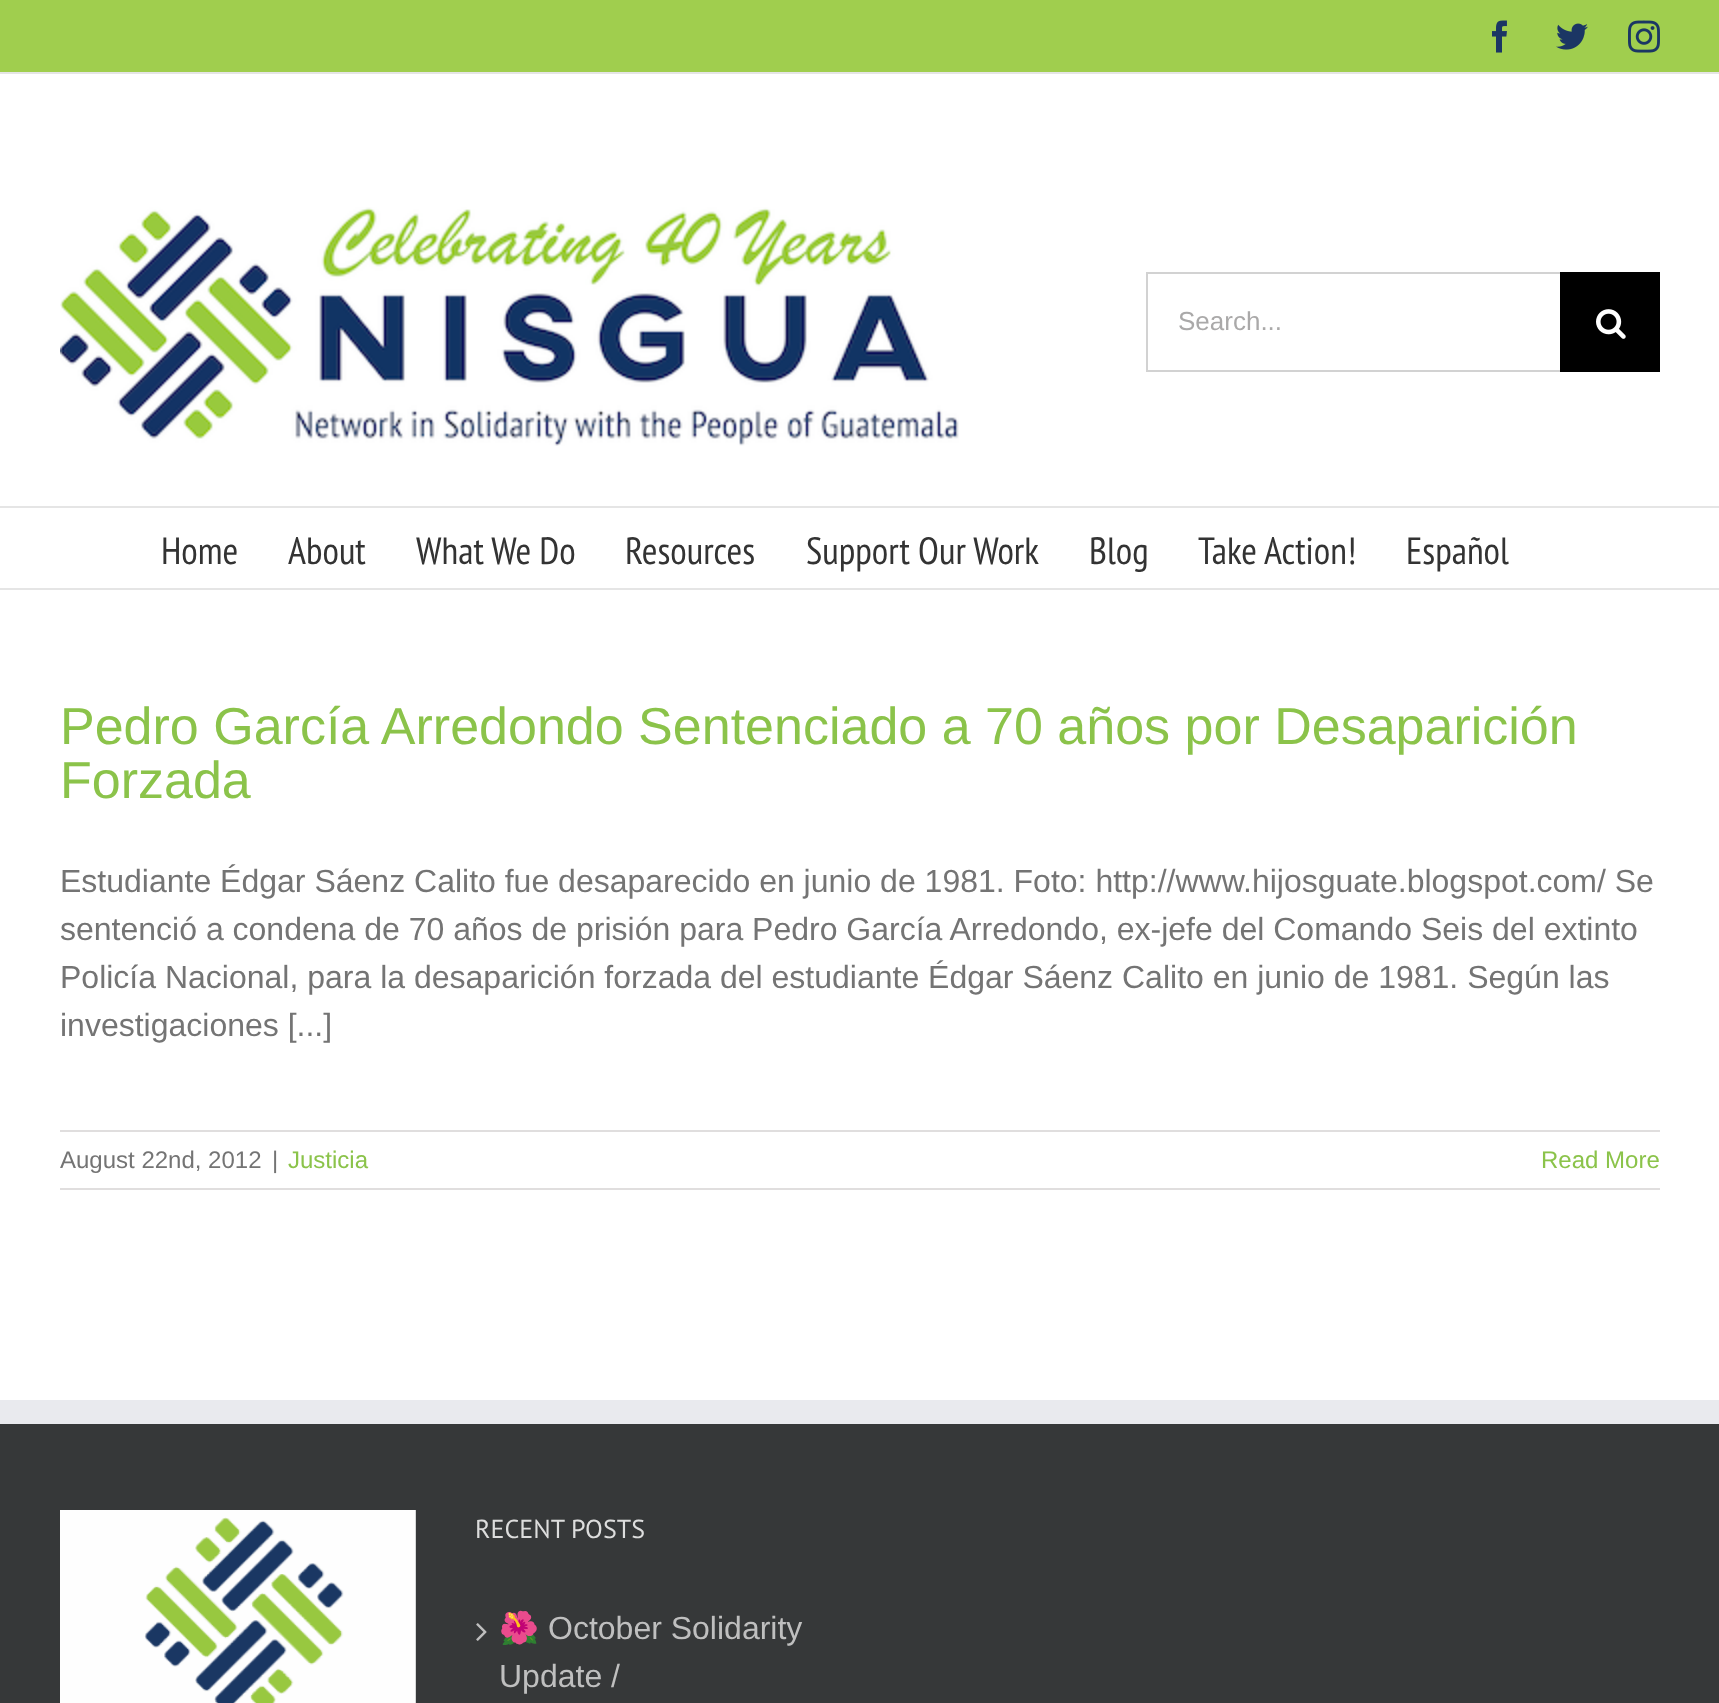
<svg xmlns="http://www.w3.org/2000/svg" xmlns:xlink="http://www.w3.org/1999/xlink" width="1719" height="1703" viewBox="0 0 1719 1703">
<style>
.cls-1{font:26px Liberation Sans;fill:#aaa9a9}
.cls-2{font:38px PT Sans Narrow;fill:#333333}
.cls-3{font:52px Liberation Sans;fill:#8bc34a}
.cls-4{font:32px Liberation Sans;fill:#747474}
.cls-5{font:24px Liberation Sans;fill:#747474}
.cls-6{font:24px Liberation Sans;fill:#8bc34a}
.cls-7{font:26px PT Sans;fill:#dddddd}
.cls-8{font:32px Noto Color Emoji;fill:#bfbfbf}
.cls-9{font:32px Liberation Sans;fill:#bfbfbf}
</style>
<rect width="100%" height="100%" fill="#ffffff"/>
<rect fill="#a0ce4e" x="0" y="0" width="1719" height="72"/>
<rect fill="#e5e5e5" x="0" y="72" width="1719" height="2"/>
<image xlink:href="image0.png" x="1492" y="20" width="15" height="33"/>
<image xlink:href="image1.png" x="1556" y="23" width="32" height="27"/>
<image xlink:href="image2.png" x="1628" y="20" width="32" height="33"/>
<rect fill="#e5e5e5" x="0" y="506" width="1719" height="2"/>
<image xlink:href="image3.png" x="60" y="207" width="899" height="239"/>
<rect fill="#d2d2d2" x="1146" y="272" width="414" height="2"/>
<rect fill="#d2d2d2" x="1146" y="370" width="414" height="2"/>
<rect fill="#d2d2d2" x="1146" y="272" width="2" height="100"/>
<rect fill="#000000" x="1560" y="272" width="100" height="100"/>
<image xlink:href="image4.png" x="1596" y="309" width="30" height="30"/>
<rect fill="#e5e5e5" x="0" y="588" width="1719" height="2"/>
<rect fill="#e0dede" x="60" y="1130" width="1600" height="2"/>
<rect fill="#e0dede" x="60" y="1188" width="1600" height="2"/>
<rect fill="#363839" x="0" y="1424" width="1719" height="279"/>
<rect fill="#e9eaee" x="0" y="1400" width="1719" height="24"/>
<image xlink:href="image5.png" x="60" y="1510" width="356" height="193"/>
<image xlink:href="image6.png" x="476" y="1623" width="11" height="18"/>
<text class="cls-1" x="1178" y="330">Search...</text>
<text class="cls-2" x="161" y="564">Home</text>
<text class="cls-2" x="288" y="564">About</text>
<text class="cls-2" x="416" y="564">What We Do</text>
<text class="cls-2" x="625" y="564">Resources</text>
<text class="cls-2" x="806" y="564">Support Our Work</text>
<text class="cls-2" x="1089" y="564">Blog</text>
<text class="cls-2" x="1198" y="564">Take Action!</text>
<text class="cls-2" x="1406" y="564">Español</text>
<text class="cls-3"><tspan x="60" y="744">Pedro García Arredondo Sentenciado a 70 años por Desaparición</tspan><tspan x="60" y="798">Forzada</tspan></text>
<text class="cls-4"><tspan x="60" y="892">Estudiante Édgar Sáenz Calito fue desaparecido en junio de 1981. Foto: http://www.hijosguate.blogspot.com/ Se</tspan><tspan x="60" y="940">sentenció a condena de 70 años de prisión para Pedro García Arredondo, ex-jefe del Comando Seis del extinto</tspan><tspan x="60" y="988">Policía Nacional, para la desaparición forzada del estudiante Édgar Sáenz Calito en junio de 1981. Según las</tspan><tspan x="60" y="1036">investigaciones [...]</tspan></text>
<text class="cls-5" x="60" y="1168">August 22nd, 2012</text>
<text class="cls-5" x="272" y="1168">|</text>
<text class="cls-6" x="288" y="1168">Justicia</text>
<text class="cls-6" x="1541" y="1168">Read More</text>
<text class="cls-7" x="475" y="1538">RECENT POSTS</text>
<text class="cls-8" x="499" y="1639">🌺</text>
<text class="cls-9" x="548" y="1639">October Solidarity</text>
<text class="cls-9" x="499" y="1687">Update /</text>
</svg>
